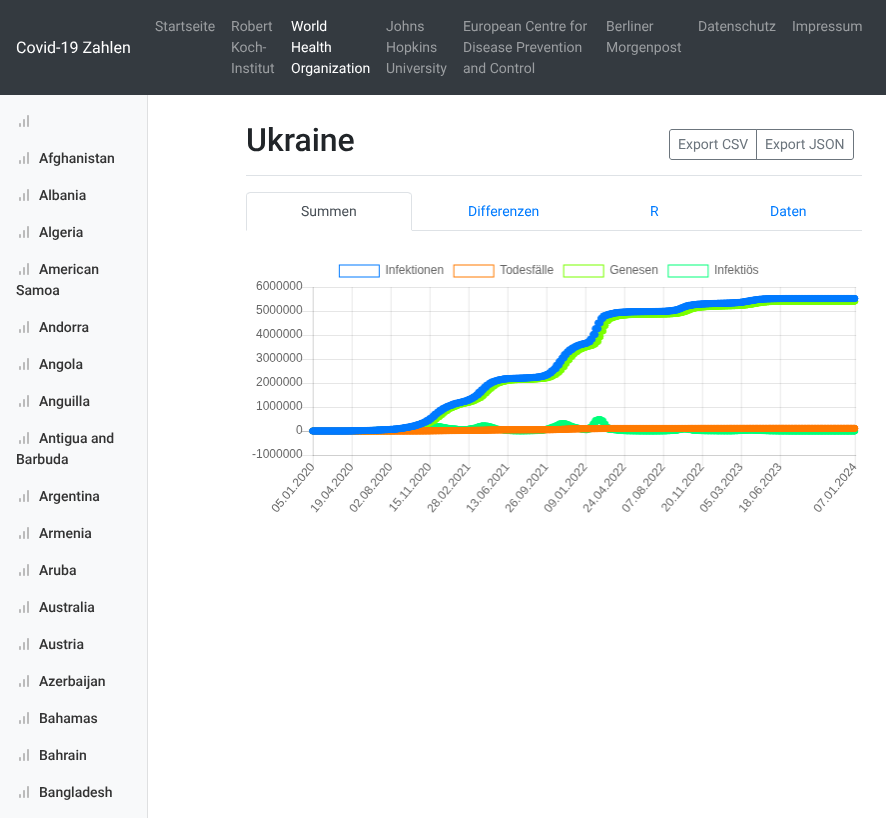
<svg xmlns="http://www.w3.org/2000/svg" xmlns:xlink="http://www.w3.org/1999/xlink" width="886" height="818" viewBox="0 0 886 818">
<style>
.cls-1{font:16px Roboto;fill:#ffffff}
.cls-2{font:14px Roboto;fill:#9a9da0}
.cls-3{font:14px Roboto;fill:#ffffff}
.cls-4{font:500 14px Roboto;fill:#333333}
.cls-5{font:500 32px Roboto;fill:#212529}
.cls-6{font:14px Roboto;fill:#6c757d}
.cls-7{font:14px Roboto;fill:#495057}
.cls-8{font:14px Roboto;fill:#007bff}
</style>
<rect width="100%" height="100%" fill="#ffffff"/>
<rect fill="#343a40" x="0" y="0" width="886" height="95"/>
<rect fill="#f8f9fa" x="0" y="95" width="147" height="723"/>
<rect fill="#dfe0e1" x="147" y="95" width="1" height="723"/>
<image xlink:href="image0.png" x="19" y="115" width="10" height="12"/>
<image xlink:href="image0.png" x="19" y="152" width="10" height="12"/>
<image xlink:href="image0.png" x="19" y="189" width="10" height="12"/>
<image xlink:href="image0.png" x="19" y="226" width="10" height="12"/>
<image xlink:href="image0.png" x="19" y="263" width="10" height="12"/>
<image xlink:href="image0.png" x="19" y="321" width="10" height="12"/>
<image xlink:href="image0.png" x="19" y="358" width="10" height="12"/>
<image xlink:href="image0.png" x="19" y="395" width="10" height="12"/>
<image xlink:href="image0.png" x="19" y="432" width="10" height="12"/>
<image xlink:href="image0.png" x="19" y="490" width="10" height="12"/>
<image xlink:href="image0.png" x="19" y="527" width="10" height="12"/>
<image xlink:href="image0.png" x="19" y="564" width="10" height="12"/>
<image xlink:href="image0.png" x="19" y="601" width="10" height="12"/>
<image xlink:href="image0.png" x="19" y="638" width="10" height="12"/>
<image xlink:href="image0.png" x="19" y="675" width="10" height="12"/>
<image xlink:href="image0.png" x="19" y="712" width="10" height="12"/>
<image xlink:href="image0.png" x="19" y="749" width="10" height="12"/>
<image xlink:href="image0.png" x="19" y="786" width="10" height="12"/>
<rect fill="#dee2e6" x="246" y="175" width="616" height="1"/>
<path fill="none" stroke="#6c757d" d="M672 129.5H756.5V159.5H672C670.5 159.5 669.5 158.5 669.5 157V132C669.5 130.5 670.5 129.5 672 129.5Z"/>
<path fill="none" stroke="#6c757d" d="M756.5 129.5H851C852.5 129.5 853.5 130.5 853.5 132V157C853.5 158.5 852.5 159.5 851 159.5H756.5Z"/>
<rect fill="#dee2e6" x="412" y="230" width="450" height="1"/>
<path fill="#dee2e6" d="M250 192L247 193L248 194L250 193H408L410 194L411 193L408 192Z"/>
<path fill="#dee2e6" d="M412 231V196C412 195 411.5 194 411 193L410 194C411 194 411 195 411 196V230Z"/>
<path fill="#ffffff" d="M412 231L411 230H247L246 231Z"/>
<path fill="#dee2e6" d="M246 231L247 230V196C247 195 247 194 248 194L247 193C246.5 194 246 195 246 196Z"/>
<image xlink:href="image1.png" x="252" y="264" width="608" height="249"/>
<text class="cls-1" x="16" y="53">Covid-19 Zahlen</text>
<text class="cls-2" x="155" y="31">Startseite</text>
<text class="cls-2"><tspan x="231" y="31">Robert</tspan><tspan x="231" y="52">Koch-</tspan><tspan x="231" y="73">Institut</tspan></text>
<text class="cls-3"><tspan x="291" y="31">World</tspan><tspan x="291" y="52">Health</tspan><tspan x="291" y="73">Organization</tspan></text>
<text class="cls-2"><tspan x="386" y="31">Johns</tspan><tspan x="386" y="52">Hopkins</tspan><tspan x="386" y="73">University</tspan></text>
<text class="cls-2"><tspan x="463" y="31">European Centre for</tspan><tspan x="463" y="52">Disease Prevention</tspan><tspan x="463" y="73">and Control</tspan></text>
<text class="cls-2"><tspan x="606" y="31">Berliner</tspan><tspan x="606" y="52">Morgenpost</tspan></text>
<text class="cls-2" x="698" y="31">Datenschutz</text>
<text class="cls-2" x="792" y="31">Impressum</text>
<text class="cls-4" x="39" y="163">Afghanistan</text>
<text class="cls-4" x="39" y="200">Albania</text>
<text class="cls-4" x="39" y="237">Algeria</text>
<text class="cls-4" x="39" y="274">American</text>
<text class="cls-4" x="16" y="295">Samoa</text>
<text class="cls-4" x="39" y="332">Andorra</text>
<text class="cls-4" x="39" y="369">Angola</text>
<text class="cls-4" x="39" y="406">Anguilla</text>
<text class="cls-4" x="39" y="443">Antigua and</text>
<text class="cls-4" x="16" y="464">Barbuda</text>
<text class="cls-4" x="39" y="501">Argentina</text>
<text class="cls-4" x="39" y="538">Armenia</text>
<text class="cls-4" x="39" y="575">Aruba</text>
<text class="cls-4" x="39" y="612">Australia</text>
<text class="cls-4" x="39" y="649">Austria</text>
<text class="cls-4" x="39" y="686">Azerbaijan</text>
<text class="cls-4" x="39" y="723">Bahamas</text>
<text class="cls-4" x="39" y="760">Bahrain</text>
<text class="cls-4" x="39" y="797">Bangladesh</text>
<text class="cls-5" x="246" y="151">Ukraine</text>
<text class="cls-6" x="678" y="149">Export CSV</text>
<text class="cls-6" x="765" y="149">Export JSON</text>
<text class="cls-7" x="301" y="216">Summen</text>
<text class="cls-8" x="468" y="216">Differenzen</text>
<text class="cls-8" x="650" y="216">R</text>
<text class="cls-8" x="770" y="216">Daten</text>
</svg>
